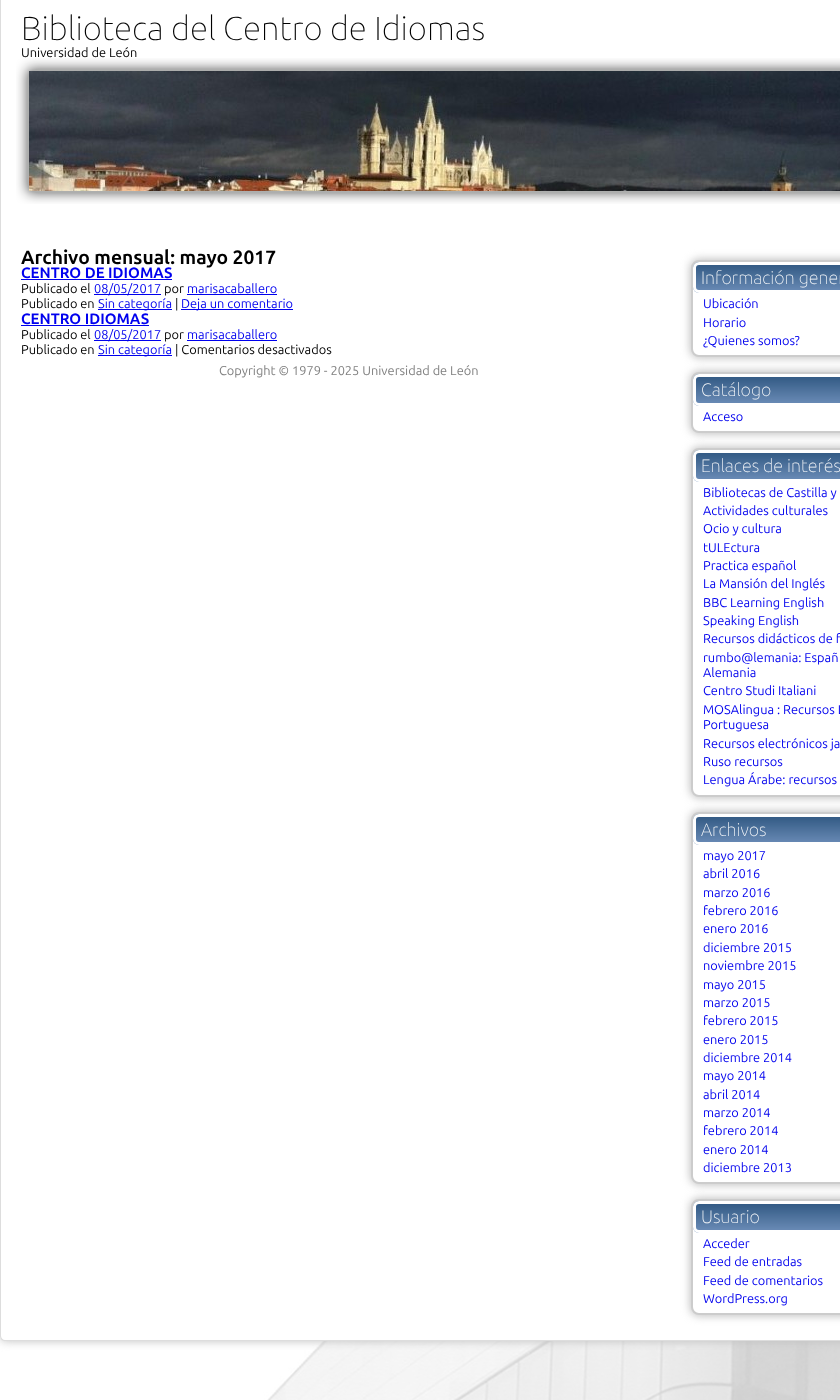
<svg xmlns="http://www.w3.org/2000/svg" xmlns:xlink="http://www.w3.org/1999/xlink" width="840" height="1400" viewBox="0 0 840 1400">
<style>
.cls-1{font:100 33.25px Ubuntu;fill:#000000}
.cls-2{font:12.8px Ubuntu;fill:#000000}
.cls-3{font:bold 19.25px Ubuntu;fill:#000000}
.cls-4{font:bold 15px Ubuntu;fill:#0000ee}
.cls-5{font:12.8px Ubuntu;fill:#0000ee}
.cls-6{font:100 18px Ubuntu;fill:#ffffff}
.cls-7{font:12.8px Ubuntu;fill:#808080}
</style>
<rect width="100%" height="100%" fill="#ffffff"/>
<image xlink:href="image0.png" x="14" y="1341" width="826" height="59"/>
<rect fill="#c0c0c0" filter="blur(5px)" x="0" y="-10" width="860" height="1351" rx="5"/>
<rect fill="#ffffff" x="0" y="-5" width="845" height="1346" rx="5"/>
<path fill="#dddddd" fill-rule="evenodd" d="M5-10H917C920-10 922-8 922-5V1336C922 1339 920 1341 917 1341H5C2 1341 0 1339 0 1336V-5C0-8 2-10 5-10ZM5-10H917C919-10 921-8 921-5V1336C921 1338 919 1340 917 1340H5C3 1340 1 1338 1 1336V-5C1-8 3-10 5-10Z"/>
<image xlink:href="image1.png" x="16" y="58" width="824" height="146"/>
<image xlink:href="image2.png" x="29" y="71" width="811" height="120"/>
<rect fill="#0000ee" x="21" y="279" width="151" height="1"/>
<rect fill="#0000ee" x="94" y="294" width="67" height="1"/>
<rect fill="#0000ee" x="187" y="294" width="90" height="1"/>
<rect fill="#0000ee" x="98" y="309" width="74" height="1"/>
<rect fill="#0000ee" x="181" y="309" width="112" height="1"/>
<rect fill="#0000ee" x="21" y="325" width="128" height="1"/>
<rect fill="#0000ee" x="94" y="340" width="67" height="1"/>
<rect fill="#0000ee" x="187" y="340" width="90" height="1"/>
<rect fill="#0000ee" x="98" y="355" width="74" height="1"/>
<rect fill="#c0c0c0" filter="blur(4px)" x="690" y="259" width="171" height="99" rx="9"/>
<rect fill="#ffffff" stroke="#cccccc" stroke-width="2" x="692" y="261" width="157" height="95" rx="7"/>
<image xlink:href="image3.png" x="693" y="262" width="147" height="31"/>
<rect fill="none" stroke="#ffffff" stroke-width="3" x="694.5" y="263.5" width="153" height="28" rx="4.5"/>
<rect fill="#c0c0c0" filter="blur(4px)" x="690" y="371" width="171" height="63" rx="9"/>
<rect fill="#ffffff" stroke="#cccccc" stroke-width="2" x="692" y="373" width="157" height="59" rx="7"/>
<image xlink:href="image4.png" x="693" y="374" width="147" height="32"/>
<rect fill="none" stroke="#ffffff" stroke-width="3" x="694.5" y="375.5" width="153" height="29" rx="4.5"/>
<rect fill="#c0c0c0" filter="blur(4px)" x="690" y="447" width="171" height="351" rx="9"/>
<rect fill="#ffffff" stroke="#cccccc" stroke-width="2" x="692" y="449" width="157" height="347" rx="7"/>
<image xlink:href="image4.png" x="693" y="450" width="147" height="32"/>
<rect fill="none" stroke="#ffffff" stroke-width="3" x="694.5" y="451.5" width="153" height="29" rx="4.5"/>
<rect fill="#c0c0c0" filter="blur(4px)" x="690" y="811" width="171" height="374" rx="9"/>
<rect fill="#ffffff" stroke="#cccccc" stroke-width="2" x="692" y="813" width="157" height="370" rx="7"/>
<image xlink:href="image3.png" x="693" y="814" width="147" height="31"/>
<rect fill="none" stroke="#ffffff" stroke-width="3" x="694.5" y="815.5" width="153" height="28" rx="4.5"/>
<rect fill="#c0c0c0" filter="blur(4px)" x="690" y="1198" width="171" height="118" rx="9"/>
<rect fill="#ffffff" stroke="#cccccc" stroke-width="2" x="692" y="1200" width="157" height="114" rx="7"/>
<image xlink:href="image4.png" x="693" y="1201" width="147" height="32"/>
<rect fill="none" stroke="#ffffff" stroke-width="3" x="694.5" y="1202.5" width="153" height="29" rx="4.5"/>
<text class="cls-1" x="21" y="40">Biblioteca del Centro de Idiomas</text>
<text class="cls-2" x="21" y="57">Universidad de León</text>
<text class="cls-3" x="21" y="264">Archivo mensual: mayo 2017</text>
<text class="cls-4" x="21" y="278">CENTRO DE IDIOMAS</text>
<text class="cls-2" x="21" y="293">Publicado el</text>
<text class="cls-5" x="94" y="293">08/05/2017</text>
<text class="cls-2" x="164" y="293">por</text>
<text class="cls-5" x="187" y="293">marisacaballero</text>
<text class="cls-2" x="21" y="308">Publicado en</text>
<text class="cls-5" x="98" y="308">Sin categoría</text>
<text class="cls-2" x="175" y="308">|</text>
<text class="cls-5" x="181" y="308">Deja un comentario</text>
<text class="cls-4" x="21" y="324">CENTRO IDIOMAS</text>
<text class="cls-2" x="21" y="339">Publicado el</text>
<text class="cls-5" x="94" y="339">08/05/2017</text>
<text class="cls-2" x="164" y="339">por</text>
<text class="cls-5" x="187" y="339">marisacaballero</text>
<text class="cls-2" x="21" y="354">Publicado en</text>
<text class="cls-5" x="98" y="354">Sin categoría</text>
<text class="cls-2" x="175" y="354">| Comentarios desactivados</text>
<text class="cls-6" x="701" y="284">Información gener</text>
<text class="cls-5"><tspan x="703" y="308">Ubicación</tspan><tspan x="703" y="327">Horario</tspan><tspan x="703" y="345">¿Quienes somos?</tspan></text>
<text class="cls-6" x="701" y="396">Catálogo</text>
<text class="cls-5" x="703" y="421">Acceso</text>
<text class="cls-6" x="701" y="472">Enlaces de interés</text>
<text class="cls-5"><tspan x="703" y="497">Bibliotecas de Castilla y</tspan><tspan x="703" y="515">Actividades culturales</tspan><tspan x="703" y="533">Ocio y cultura</tspan><tspan x="703" y="552">tULEctura</tspan><tspan x="703" y="570">Practica español</tspan><tspan x="703" y="588">La Mansión del Inglés</tspan><tspan x="703" y="607">BBC Learning English</tspan><tspan x="703" y="625">Speaking English</tspan><tspan x="703" y="643">Recursos didácticos de f</tspan><tspan x="703" y="662">rumbo@lemania: Españ</tspan><tspan x="703" y="677">Alemania</tspan><tspan x="703" y="695">Centro Studi Italiani</tspan><tspan x="703" y="714">MOSAlingua : Recursos L</tspan><tspan x="703" y="729">Portuguesa</tspan><tspan x="703" y="748">Recursos electrónicos ja</tspan><tspan x="703" y="766">Ruso recursos</tspan><tspan x="703" y="784">Lengua Árabe: recursos</tspan></text>
<text class="cls-6" x="701" y="836">Archivos</text>
<text class="cls-5"><tspan x="703" y="860">mayo 2017</tspan><tspan x="703" y="878">abril 2016</tspan><tspan x="703" y="897">marzo 2016</tspan><tspan x="703" y="915">febrero 2016</tspan><tspan x="703" y="933">enero 2016</tspan><tspan x="703" y="952">diciembre 2015</tspan><tspan x="703" y="970">noviembre 2015</tspan><tspan x="703" y="989">mayo 2015</tspan><tspan x="703" y="1007">marzo 2015</tspan><tspan x="703" y="1025">febrero 2015</tspan><tspan x="703" y="1044">enero 2015</tspan><tspan x="703" y="1062">diciembre 2014</tspan><tspan x="703" y="1080">mayo 2014</tspan><tspan x="703" y="1099">abril 2014</tspan><tspan x="703" y="1117">marzo 2014</tspan><tspan x="703" y="1135">febrero 2014</tspan><tspan x="703" y="1154">enero 2014</tspan><tspan x="703" y="1172">diciembre 2013</tspan></text>
<text class="cls-6" x="701" y="1223">Usuario</text>
<text class="cls-5"><tspan x="703" y="1248">Acceder</tspan><tspan x="703" y="1266">Feed de entradas</tspan><tspan x="703" y="1285">Feed de comentarios</tspan><tspan x="703" y="1303">WordPress.org</tspan></text>
<text class="cls-7" x="219" y="375">Copyright © 1979 - 2025 Universidad de León</text>
</svg>
